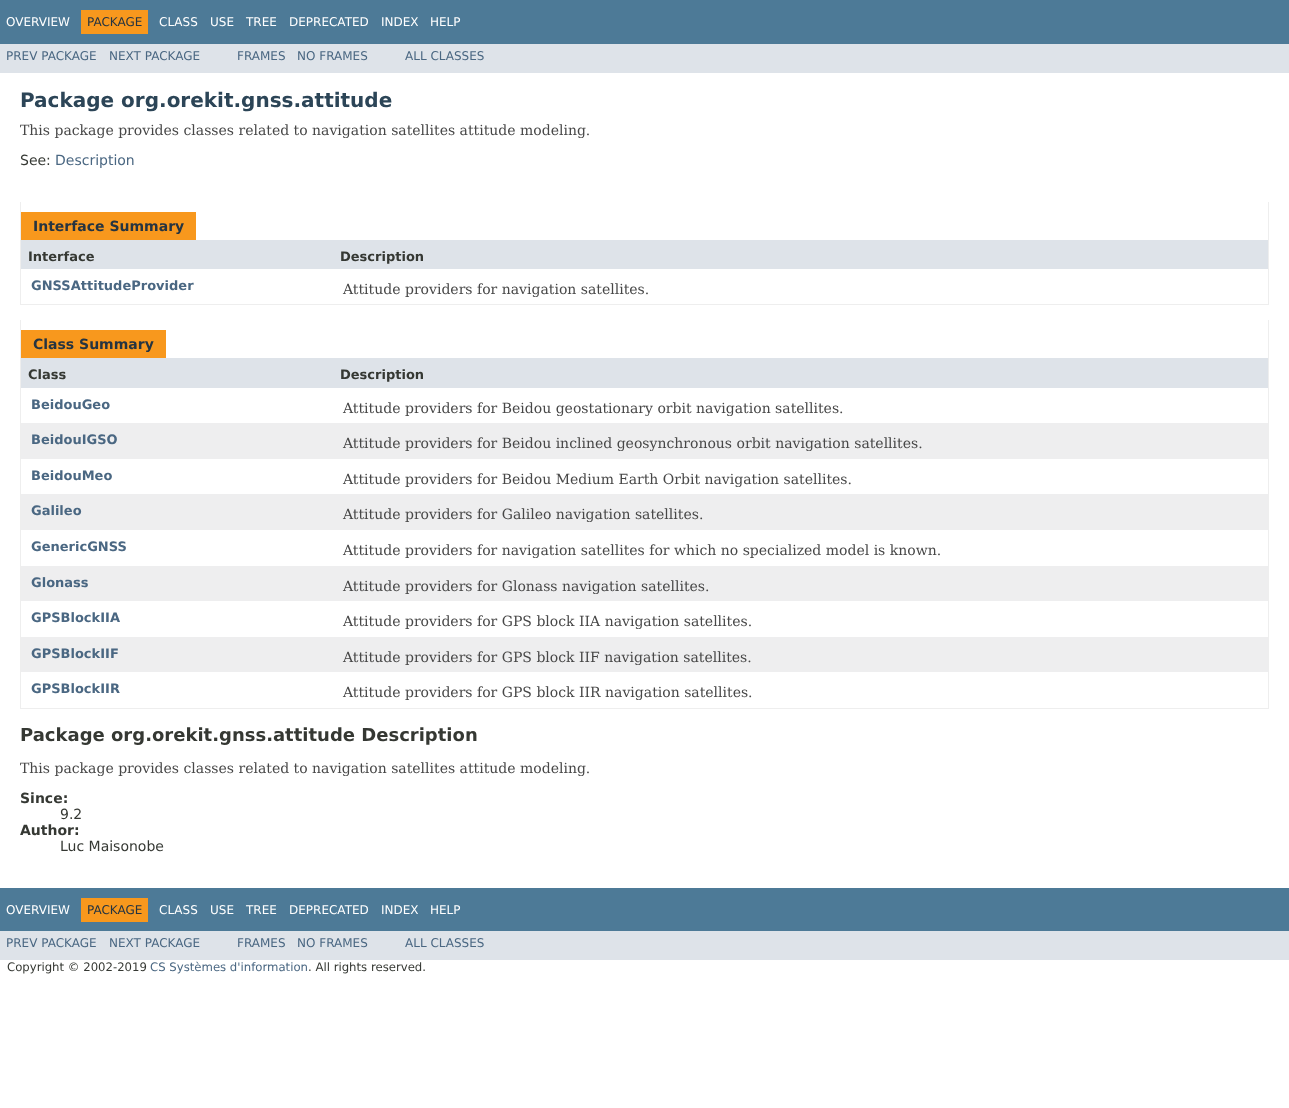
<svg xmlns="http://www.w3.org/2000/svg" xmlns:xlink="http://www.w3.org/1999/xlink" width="1289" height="1108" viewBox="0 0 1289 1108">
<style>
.cls-1{font:12px DejaVu Sans;fill:#ffffff}
.cls-2{font:12px DejaVu Sans;fill:#253441}
.cls-3{font:12px DejaVu Sans;fill:#4a6782}
.cls-4{font:bold 20px DejaVu Sans;fill:#2c4557}
.cls-5{font:14px DejaVu Serif;fill:#474747}
.cls-6{font:14px DejaVu Sans;fill:#353833}
.cls-7{font:14px DejaVu Sans;fill:#4a6782}
.cls-8{font:bold 14px DejaVu Sans;fill:#253441}
.cls-9{font:bold 13px DejaVu Sans;fill:#353833}
.cls-10{font:bold 13px DejaVu Sans;fill:#4a6782}
.cls-11{font:bold 18px DejaVu Sans;fill:#353833}
.cls-12{font:bold 14px DejaVu Sans;fill:#353833}
.cls-13{font:11.7px DejaVu Sans;fill:#353833}
.cls-14{font:11.7px DejaVu Sans;fill:#4a6782}
</style>
<rect width="100%" height="100%" fill="#ffffff"/>
<rect fill="#4d7a97" x="0" y="0" width="1289" height="44"/>
<rect fill="#f8981d" x="81" y="10" width="67" height="24"/>
<rect fill="#dee3e9" x="0" y="44" width="1289" height="29"/>
<rect fill="#eeeeee" x="1268" y="202" width="1" height="103"/>
<rect fill="#eeeeee" x="20" y="304" width="1249" height="1"/>
<rect fill="#eeeeee" x="20" y="202" width="1" height="103"/>
<rect fill="#f8981d" x="21" y="212" width="175" height="28"/>
<rect fill="#dee3e9" x="21" y="240" width="1247" height="29"/>
<rect fill="#eeeeee" x="1268" y="320" width="1" height="389"/>
<rect fill="#eeeeee" x="20" y="708" width="1249" height="1"/>
<rect fill="#eeeeee" x="20" y="320" width="1" height="389"/>
<rect fill="#f8981d" x="21" y="330" width="145" height="28"/>
<rect fill="#dee3e9" x="21" y="358" width="1247" height="30"/>
<rect fill="#eeeeef" x="21" y="423" width="1247" height="36"/>
<rect fill="#eeeeef" x="21" y="494" width="1247" height="36"/>
<rect fill="#eeeeef" x="21" y="566" width="1247" height="35"/>
<rect fill="#eeeeef" x="21" y="637" width="1247" height="35"/>
<rect fill="#4d7a97" x="0" y="888" width="1289" height="43"/>
<rect fill="#f8981d" x="81" y="898" width="67" height="24"/>
<rect fill="#dee3e9" x="0" y="931" width="1289" height="29"/>
<text class="cls-1" x="6" y="26">OVERVIEW</text>
<text class="cls-2" x="87" y="26">PACKAGE</text>
<text class="cls-1" x="159" y="26">CLASS</text>
<text class="cls-1" x="210" y="26">USE</text>
<text class="cls-1" x="246" y="26">TREE</text>
<text class="cls-1" x="289" y="26">DEPRECATED</text>
<text class="cls-1" x="381" y="26">INDEX</text>
<text class="cls-1" x="430" y="26">HELP</text>
<text class="cls-3" x="6" y="60">PREV PACKAGE</text>
<text class="cls-3" x="109" y="60">NEXT PACKAGE</text>
<text class="cls-3" x="237" y="60">FRAMES</text>
<text class="cls-3" x="297" y="60">NO FRAMES</text>
<text class="cls-3" x="405" y="60">ALL CLASSES</text>
<text class="cls-4" x="20" y="107">Package org.orekit.gnss.attitude</text>
<text class="cls-5" x="20" y="135">This package provides classes related to navigation satellites attitude modeling.</text>
<text class="cls-6" x="20" y="165">See:</text>
<text class="cls-7" x="55" y="165">Description</text>
<text class="cls-8" x="33" y="231">Interface Summary</text>
<text class="cls-9" x="28" y="261">Interface</text>
<text class="cls-9" x="340" y="261">Description</text>
<text class="cls-10" x="31" y="290">GNSSAttitudeProvider</text>
<text class="cls-5" x="343" y="294">Attitude providers for navigation satellites.</text>
<text class="cls-8" x="33" y="349">Class Summary</text>
<text class="cls-9" x="28" y="379">Class</text>
<text class="cls-9" x="340" y="379">Description</text>
<text class="cls-10" x="31" y="409">BeidouGeo</text>
<text class="cls-5" x="343" y="413">Attitude providers for Beidou geostationary orbit navigation satellites.</text>
<text class="cls-10" x="31" y="444">BeidouIGSO</text>
<text class="cls-5" x="343" y="448">Attitude providers for Beidou inclined geosynchronous orbit navigation satellites.</text>
<text class="cls-10" x="31" y="480">BeidouMeo</text>
<text class="cls-5" x="343" y="484">Attitude providers for Beidou Medium Earth Orbit navigation satellites.</text>
<text class="cls-10" x="31" y="515">Galileo</text>
<text class="cls-5" x="343" y="519">Attitude providers for Galileo navigation satellites.</text>
<text class="cls-10" x="31" y="551">GenericGNSS</text>
<text class="cls-5" x="343" y="555">Attitude providers for navigation satellites for which no specialized model is known.</text>
<text class="cls-10" x="31" y="587">Glonass</text>
<text class="cls-5" x="343" y="591">Attitude providers for Glonass navigation satellites.</text>
<text class="cls-10" x="31" y="622">GPSBlockIIA</text>
<text class="cls-5" x="343" y="626">Attitude providers for GPS block IIA navigation satellites.</text>
<text class="cls-10" x="31" y="658">GPSBlockIIF</text>
<text class="cls-5" x="343" y="662">Attitude providers for GPS block IIF navigation satellites.</text>
<text class="cls-10" x="31" y="693">GPSBlockIIR</text>
<text class="cls-5" x="343" y="697">Attitude providers for GPS block IIR navigation satellites.</text>
<text class="cls-11" x="20" y="741">Package org.orekit.gnss.attitude Description</text>
<text class="cls-5" x="20" y="773">This package provides classes related to navigation satellites attitude modeling.</text>
<text class="cls-12" x="20" y="803">Since:</text>
<text class="cls-6" x="60" y="819">9.2</text>
<text class="cls-12" x="20" y="835">Author:</text>
<text class="cls-6" x="60" y="851">Luc Maisonobe</text>
<text class="cls-1" x="6" y="914">OVERVIEW</text>
<text class="cls-2" x="87" y="914">PACKAGE</text>
<text class="cls-1" x="159" y="914">CLASS</text>
<text class="cls-1" x="210" y="914">USE</text>
<text class="cls-1" x="246" y="914">TREE</text>
<text class="cls-1" x="289" y="914">DEPRECATED</text>
<text class="cls-1" x="381" y="914">INDEX</text>
<text class="cls-1" x="430" y="914">HELP</text>
<text class="cls-3" x="6" y="947">PREV PACKAGE</text>
<text class="cls-3" x="109" y="947">NEXT PACKAGE</text>
<text class="cls-3" x="237" y="947">FRAMES</text>
<text class="cls-3" x="297" y="947">NO FRAMES</text>
<text class="cls-3" x="405" y="947">ALL CLASSES</text>
<text class="cls-13" x="7" y="971">Copyright © 2002-2019</text>
<text class="cls-14" x="150" y="971">CS Systèmes d'information</text>
<text class="cls-13" x="308" y="971">. All rights reserved.</text>
</svg>
